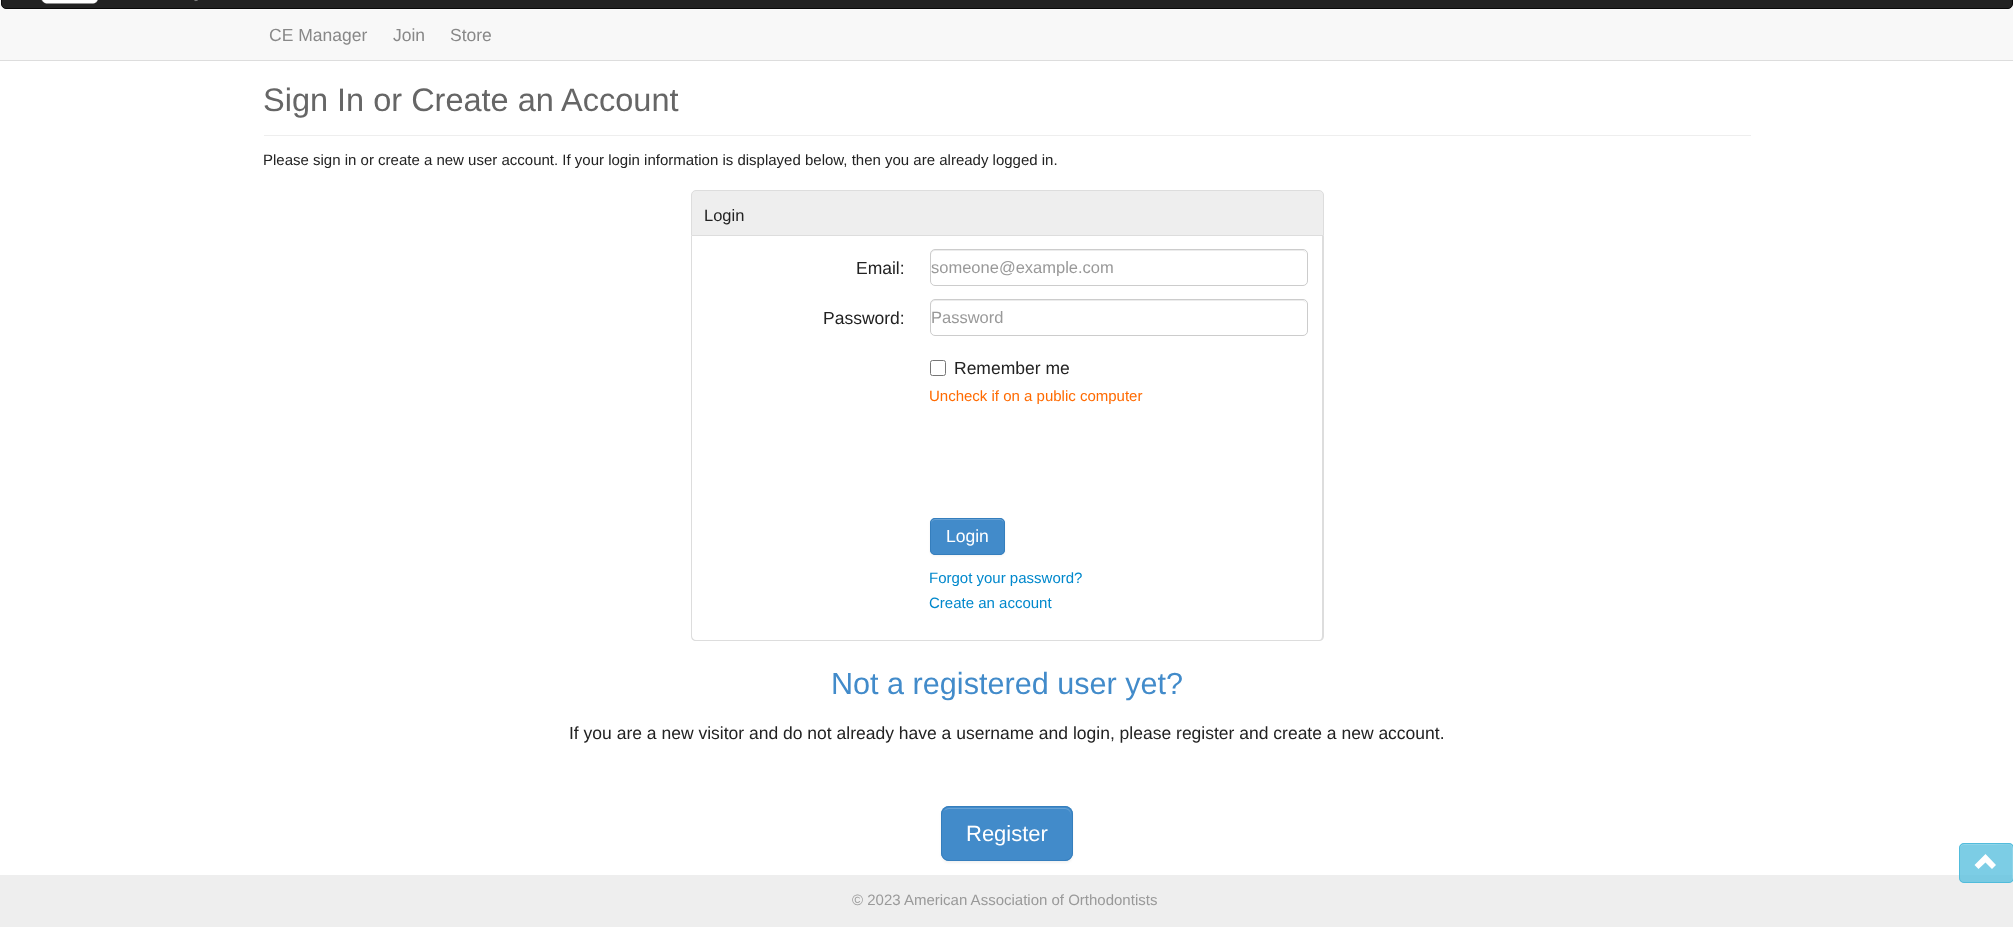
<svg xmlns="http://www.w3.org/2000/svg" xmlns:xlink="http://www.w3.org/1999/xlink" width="2013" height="927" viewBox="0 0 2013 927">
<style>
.cls-1{font:17.5px Liberation Sans;fill:#888888}
.cls-2{font:32.5px Liberation Sans;fill:#666666}
.cls-3{font:15px Liberation Sans;fill:#222222}
.cls-4{font:16.5px Liberation Sans;fill:#222222}
.cls-5{font:17.5px Liberation Sans;fill:#222222}
.cls-6{font:16.5px Liberation Sans;fill:#999999}
.cls-7{font:15px Liberation Sans;fill:#ff6a00}
.cls-8{font:17.5px Liberation Sans;fill:#ffffff}
.cls-9{font:15px Liberation Sans;fill:#0088cc}
.cls-10{font:30.6px Liberation Sans;fill:#428bca}
.cls-11{font:22px Liberation Sans;fill:#ffffff}
.cls-12{font:15px Liberation Sans;fill:#999999}
</style>
<defs>
<clipPath id="clip1"><rect x="931" y="258" width="375" height="18"/></clipPath>
</defs>
<rect width="100%" height="100%" fill="#ffffff"/>
<rect fill="#f8f8f8" x="0" y="0" width="2013" height="60"/>
<rect fill="#dddddd" x="0" y="60" width="2013" height="1"/>
<rect fill="#222222" stroke="#080808" x="1.5" y="-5.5" width="2011" height="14" rx="4.5"/>
<image xlink:href="image0.png" x="41" y="0" width="157" height="4"/>
<rect fill="#eeeeee" x="264" y="135" width="1487" height="1"/>
<path fill="#eeeeee" stroke="#dddddd" d="M696 190.5H1319C1321.5 190.5 1323.5 192.5 1323.5 195V235.5H691.5V195C691.5 192.5 693.5 190.5 696 190.5Z"/>
<path fill="#dddddd" fill-rule="evenodd" d="M691 236H1324V636C1324 639 1322 641 1319 641H696C693 641 691 639 691 636ZM692 236H1322V636C1322 638 1321 640 1319 640H696C694 640 692 638 692 636Z"/>
<path fill="#ececec" d="M935 251H1302C1305 251 1306 253 1306 255C1306 252 1305 250 1302 250H935C932 250 931 252 931 255C931 253 933 251 935 251Z"/>
<rect fill="none" stroke="#cccccc" x="930.5" y="249.5" width="377" height="36" rx="4.5"/>
<path fill="#ececec" d="M935 301H1302C1305 301 1306 303 1306 305C1306 302 1305 300 1302 300H935C932 300 931 302 931 305C931 303 933 301 935 301Z"/>
<rect fill="none" stroke="#cccccc" x="930.5" y="299.5" width="377" height="36" rx="4.5"/>
<rect fill="none" stroke="#767676" x="930.5" y="360.5" width="15" height="15" rx="2"/>
<rect fill="#000000" fill-opacity="0.05" filter="blur(1px)" x="930" y="519" width="75" height="37" rx="5"/>
<rect fill="#428bca" x="930" y="518" width="75" height="37" rx="5"/>
<path fill="#68a2d5" d="M935 520H1000C1002 520 1004 522 1004 524C1004 516 994 519 989 519H946C941 519 931 516 931 524C931 522 933 520 935 520Z"/>
<rect fill="none" stroke="#357ebd" x="930.5" y="518.5" width="74" height="36" rx="4.5"/>
<rect fill="#000000" fill-opacity="0.05" filter="blur(1px)" x="941" y="808" width="132" height="55" rx="8"/>
<rect fill="#428bca" x="941" y="806" width="132" height="55" rx="8"/>
<path fill="#68a2d5" d="M949 809H1065C1068 809 1071 812 1071 815V814C1071 811 1068 808 1065 808H949C947 808 945 809 944 811C945 810 947 809 949 809Z"/>
<rect fill="none" stroke="#357ebd" x="941.5" y="806.5" width="131" height="54" rx="7.5"/>
<rect fill="#eeeeee" x="0" y="875" width="2013" height="52"/>
<rect fill="#5bc0de" fill-opacity="0.8" x="1959" y="843" width="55" height="40" rx="5"/>
<path fill="#ffffff" fill-opacity="0.16" d="M1964 845H1994C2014 845 2012 841 2012 859V880C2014 878 2013 874 2013 872V862C2013 841 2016 844 1994 844H1972C1967 844 1960 842 1960 849C1960 847 1962 845 1964 845Z"/>
<rect fill="none" stroke="#46b8da" stroke-opacity="0.8" x="1959.5" y="843.5" width="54" height="39" rx="4.5"/>
<path fill="#ffffff" d="M1974.5 865L1978.5 869L1985.5 862.5L1992 869L1996 865L1985.5 854Z"/>
<text class="cls-1" x="269" y="41">CE Manager</text>
<text class="cls-1" x="393" y="41">Join</text>
<text class="cls-1" x="450" y="41">Store</text>
<text class="cls-2" x="263" y="111">Sign In or Create an Account</text>
<text class="cls-3" x="263" y="165">Please sign in or create a new user account. If your login information is displayed below, then you are already logged in.</text>
<text class="cls-4" x="704" y="221">Login</text>
<text class="cls-5" x="856" y="274">Email:</text>
<g clip-path="url(#clip1)">
<text class="cls-6" x="931" y="273">someone@example.com</text>
</g>
<text class="cls-5" x="823" y="324">Password:</text>
<text class="cls-6" x="931" y="323">Password</text>
<text class="cls-5" x="954" y="374">Remember me</text>
<text class="cls-7" x="929" y="401">Uncheck if on a public computer</text>
<text class="cls-8" x="946" y="542">Login</text>
<text class="cls-9"><tspan x="929" y="583">Forgot your password?</tspan><tspan x="929" y="608">Create an account</tspan></text>
<text class="cls-10" x="831" y="694">Not a registered user yet?</text>
<text class="cls-5" x="569" y="739">If you are a new visitor and do not already have a username and login, please register and create a new account.</text>
<text class="cls-11" x="966" y="841">Register</text>
<text class="cls-12" x="852" y="905">© 2023 American Association of Orthodontists</text>
</svg>
